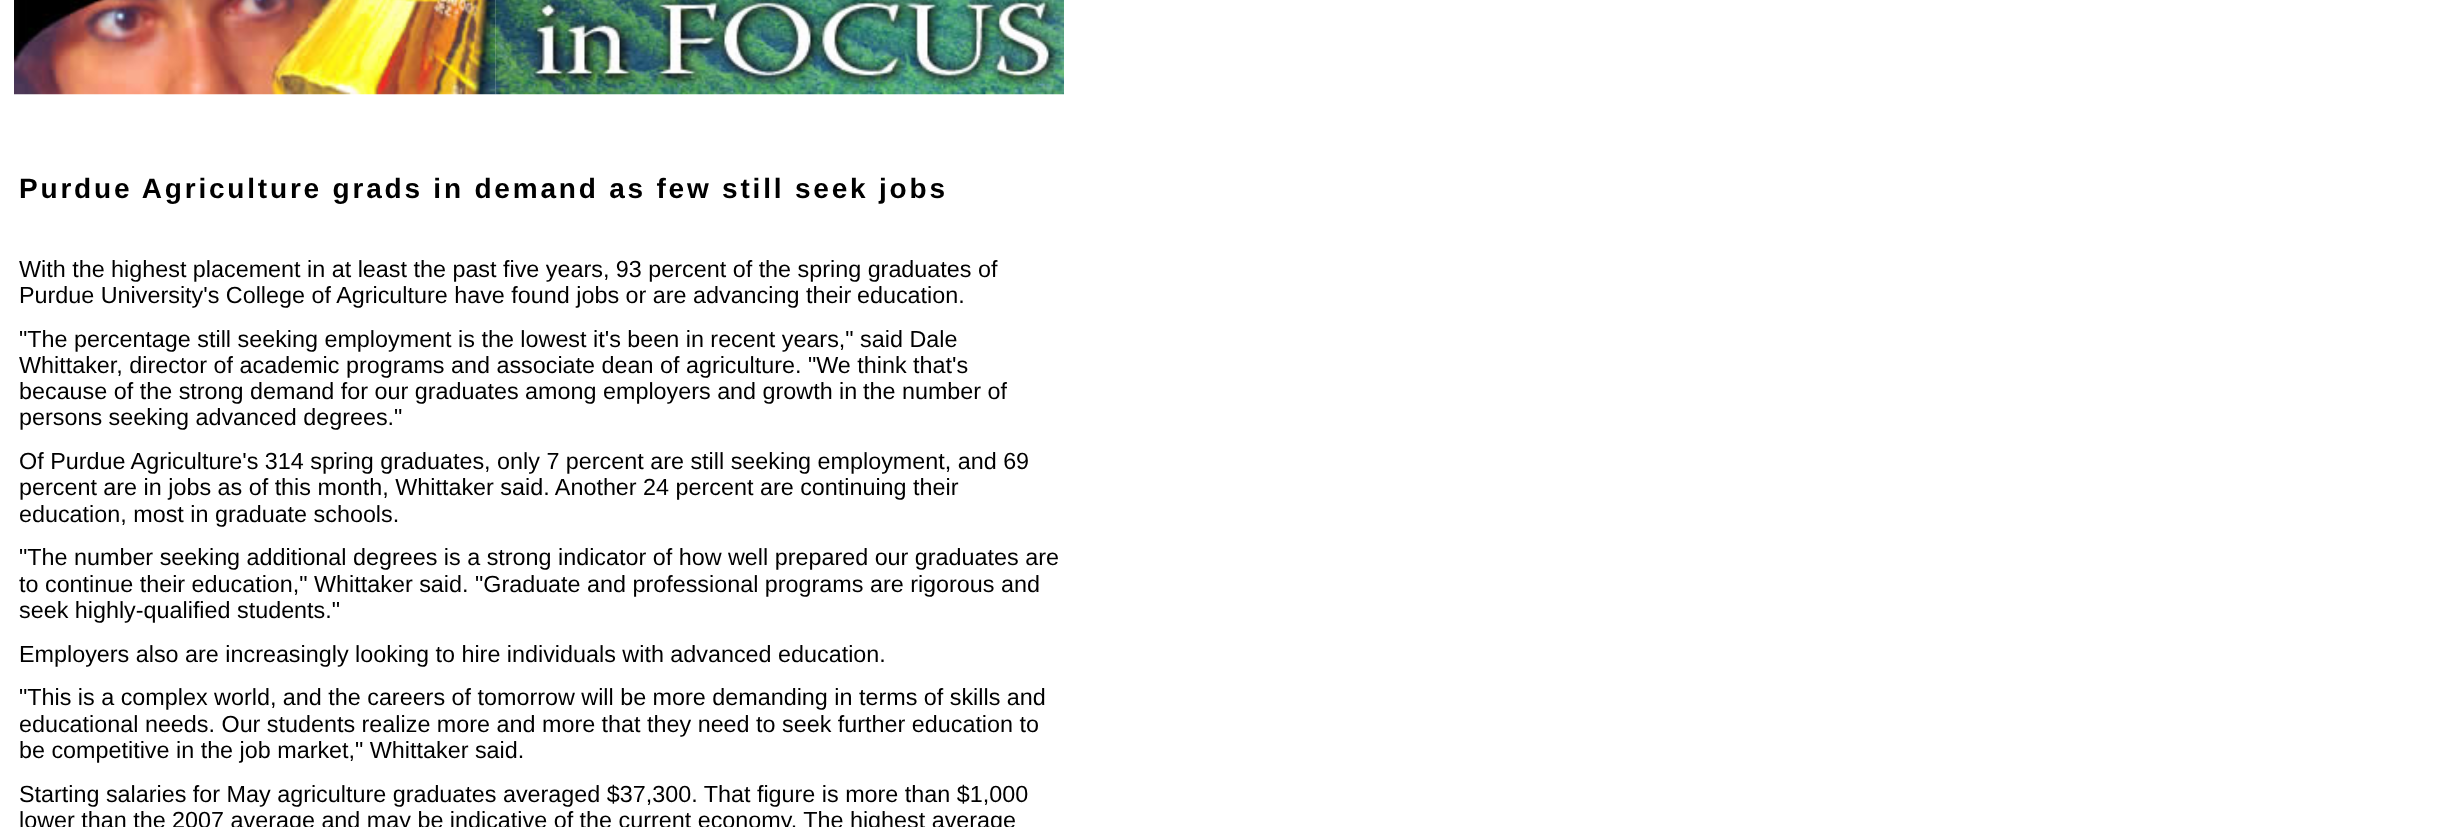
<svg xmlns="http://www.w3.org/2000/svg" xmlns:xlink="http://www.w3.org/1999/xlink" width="2447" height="827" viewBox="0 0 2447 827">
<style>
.cls-1{font:bold 28px Liberation Sans;letter-spacing:2.8px;fill:#000000}
.cls-2{font:23.35px Liberation Sans;fill:#000000}
</style>
<rect width="100%" height="100%" fill="#ffffff"/>
<image xlink:href="image0.png" x="14" y="0" width="482" height="95"/>
<image xlink:href="image1.png" x="495" y="0" width="569" height="95"/>
<text class="cls-1" x="19" y="198">Purdue Agriculture grads in demand as few still seek jobs</text>
<text class="cls-2"><tspan x="19" y="277">With the highest placement in at least the past five years, 93 percent of the spring graduates of</tspan><tspan x="19" y="303">Purdue University's College of Agriculture have found jobs or are advancing their</tspan></text>
<text class="cls-2" x="857" y="303">education.</text>
<text class="cls-2"><tspan x="19" y="347">"The percentage still seeking employment is the lowest it's been in recent years," said Dale</tspan><tspan x="19" y="373">Whittaker, director of academic programs and associate dean of agriculture. "We think that's</tspan><tspan x="19" y="399">because of the strong demand for our graduates among employers and growth in</tspan></text>
<text class="cls-2" x="863" y="399">the number of</text>
<text class="cls-2"><tspan x="19" y="425">persons seeking advanced degrees."</tspan><tspan x="19" y="469">Of Purdue Agriculture's 314 spring graduates, only 7 percent are still seeking employment, and 69</tspan><tspan x="19" y="495">percent are in jobs as of this month, Whittaker said. Another 24 percent are continuing their</tspan><tspan x="19" y="522">education, most in graduate schools.</tspan><tspan x="19" y="565">"The number seeking additional degrees is a strong indicator of how well prepared our graduates are</tspan><tspan x="19" y="592">to continue their education," Whittaker said. "Graduate and professional programs are rigorous and</tspan><tspan x="19" y="618">seek highly-qualified students."</tspan><tspan x="19" y="662">Employers also are increasingly looking to hire individuals with advanced education.</tspan><tspan x="19" y="705">"This is a complex world, and the careers of tomorrow will be more demanding in terms of skills and</tspan><tspan x="19" y="732">educational needs. Our students realize more and more that they need to seek further education to</tspan><tspan x="19" y="758">be competitive in the job market," Whittaker said.</tspan><tspan x="19" y="802">Starting salaries for May agriculture graduates averaged $37,300. That figure is more than $1,000</tspan><tspan x="19" y="828">lower than the 2007 average and may be indicative of the current economy. The highest average</tspan></text>
</svg>
